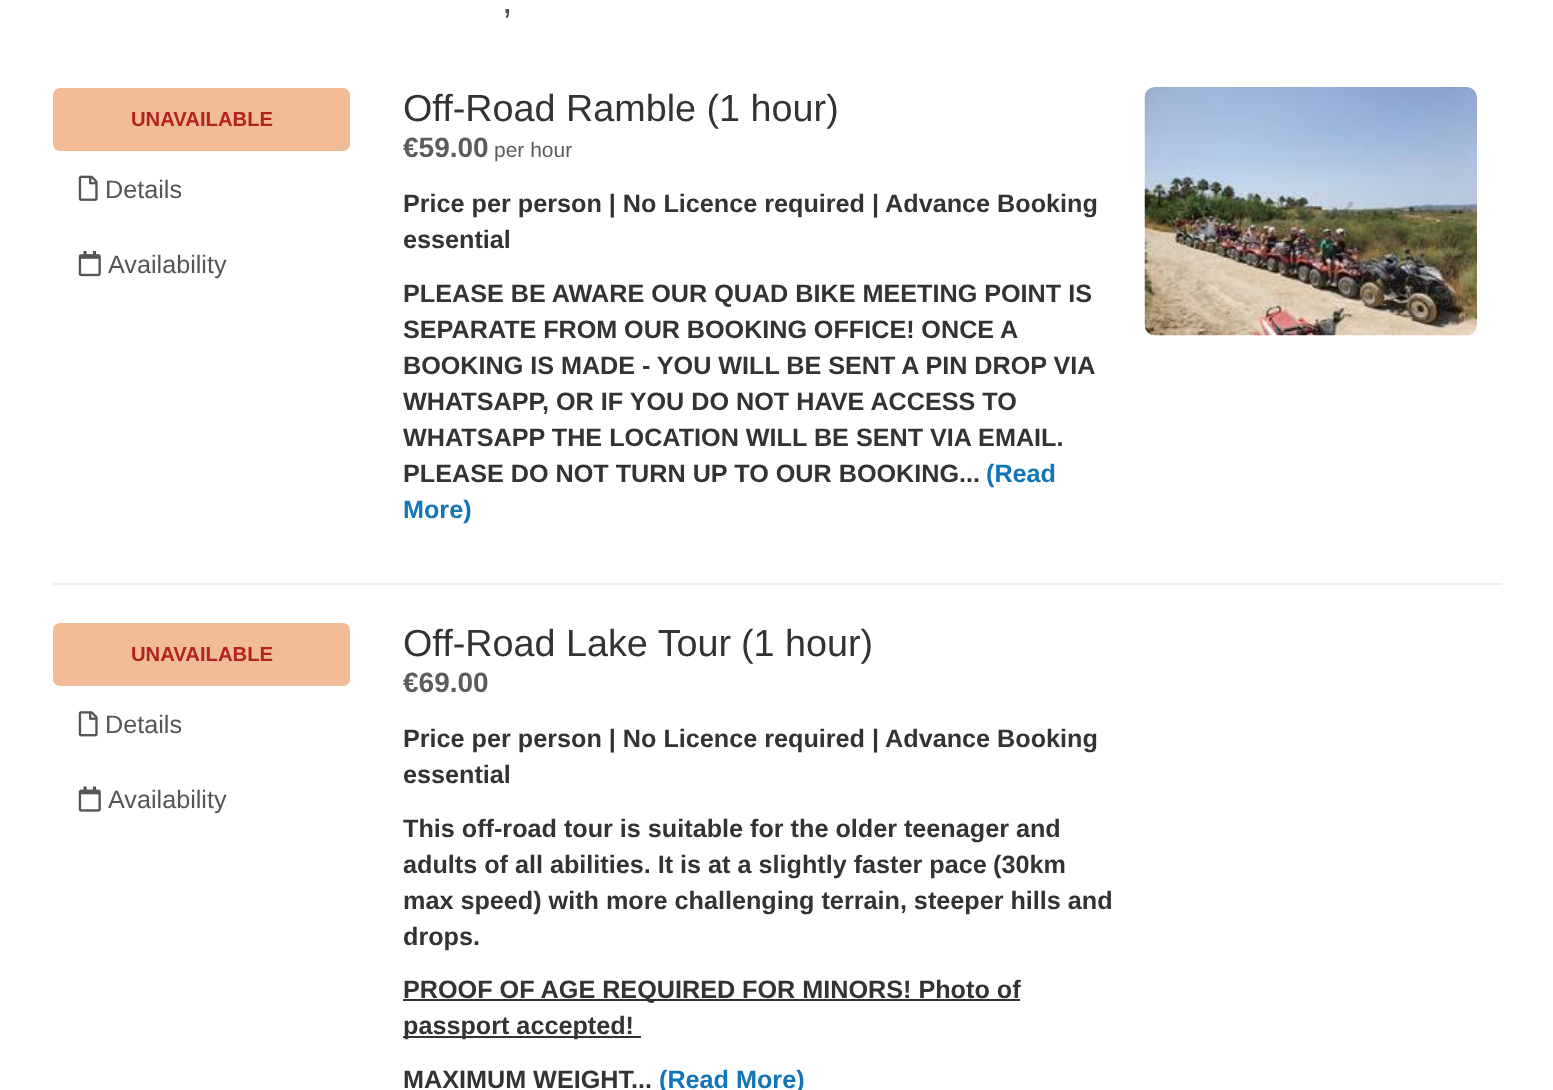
<svg xmlns="http://www.w3.org/2000/svg" xmlns:xlink="http://www.w3.org/1999/xlink" width="1553" height="1090" viewBox="0 0 1553 1090">
<style>
.cls-1{font:37.75px Liberation Sans;fill:#48535e}
.cls-2{font:bold 20.25px Liberation Sans;fill:#b22222}
.cls-3{font:25.2px Liberation Sans;fill:#555555}
.cls-4{font:37.75px Liberation Sans;fill:#333333}
.cls-5{font:bold 28px Liberation Sans;fill:#5c5c5c}
.cls-6{font:21px Liberation Sans;fill:#5c5c5c}
.cls-7{font:bold 25.2px Liberation Sans;fill:#333333}
.cls-8{font:bold 25.2px Liberation Sans;fill:#1275b8}
</style>
<defs>
<clipPath id="clip1"><rect x="403" y="88" width="715" height="456"/></clipPath>
<clipPath id="clip2"><rect x="403" y="623" width="715" height="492"/></clipPath>
</defs>
<rect width="100%" height="100%" fill="#ffffff"/>
<rect fill="#eeeeee" x="53" y="583" width="1449" height="2"/>
<rect fill="#f2bd96" x="53" y="88" width="297" height="63" rx="7"/>
<image xlink:href="image0.png" x="78" y="175" width="20" height="26"/>
<image xlink:href="image1.png" x="78" y="250" width="23" height="27"/>
<image xlink:href="image2.png" x="1144" y="87" width="333" height="249"/>
<rect fill="#f2bd96" x="53" y="623" width="297" height="63" rx="7"/>
<image xlink:href="image3.png" x="78" y="711" width="20" height="26"/>
<image xlink:href="image4.png" x="78" y="786" width="23" height="26"/>
<rect fill="#333333" x="403" y="999" width="617" height="2"/>
<rect fill="#333333" x="403" y="1036" width="238" height="2"/>
<text class="cls-1" x="502" y="13">,</text>
<text class="cls-2" x="131" y="126">UNAVAILABLE</text>
<text class="cls-3" x="105" y="198">Details</text>
<text class="cls-3" x="108" y="273">Availability</text>
<text class="cls-4" x="403" y="121">Off-Road Ramble (1 hour)</text>
<g clip-path="url(#clip1)">
<text class="cls-5" x="403" y="157">€59.00</text>
</g>
<text class="cls-6" x="494" y="157">per hour</text>
<text class="cls-7"><tspan x="403" y="212">Price per person | No Licence required | Advance Booking</tspan><tspan x="403" y="248">essential</tspan></text>
<text class="cls-7"><tspan x="403" y="302">PLEASE BE AWARE OUR QUAD BIKE MEETING POINT IS</tspan><tspan x="403" y="338" word-spacing="-0.25">SEPARATE FROM OUR BOOKING OFFICE! ONCE A</tspan><tspan x="403" y="374" word-spacing="-0.1">BOOKING IS MADE - YOU WILL BE SENT A PIN DROP VIA</tspan><tspan x="403" y="410">WHATSAPP, OR IF YOU DO NOT HAVE ACCESS TO</tspan><tspan x="403" y="446">WHATSAPP THE LOCATION WILL BE SENT VIA EMAIL.</tspan><tspan x="403" y="482">PLEASE DO NOT TURN UP TO OUR BOOKING...</tspan></text>
<text class="cls-8" x="986" y="482">(Read</text>
<text class="cls-8" x="403" y="518">More)</text>
<text class="cls-2" x="131" y="661">UNAVAILABLE</text>
<text class="cls-3" x="105" y="733">Details</text>
<text class="cls-3" x="108" y="808">Availability</text>
<text class="cls-4" x="403" y="656">Off-Road Lake Tour</text>
<text class="cls-4" x="741" y="656">(1 hour)</text>
<g clip-path="url(#clip2)">
<text class="cls-5" x="403" y="692">€69.00</text>
</g>
<text class="cls-7"><tspan x="403" y="747">Price per person | No Licence required | Advance Booking</tspan><tspan x="403" y="783">essential</tspan></text>
<g clip-path="url(#clip2)">
<text class="cls-7" x="403" y="837">This off-road tour is suitable for the older teenager and</text>
</g>
<text class="cls-7" x="403" y="873">adults of all abilities. It is at a slightly faster pace</text>
<text class="cls-7" x="993" y="873">(30km</text>
<text class="cls-7"><tspan x="403" y="909">max speed) with more challenging terrain, steeper hills and</tspan><tspan x="403" y="945">drops.</tspan></text>
<text class="cls-7"><tspan x="403" y="998">PROOF OF AGE REQUIRED FOR MINORS! Photo of</tspan><tspan x="403" y="1034">passport accepted!</tspan></text>
<text class="cls-7" x="403" y="1088">MAXIMUM WEIGHT...</text>
<text class="cls-8" x="659" y="1088">(Read More)</text>
</svg>
